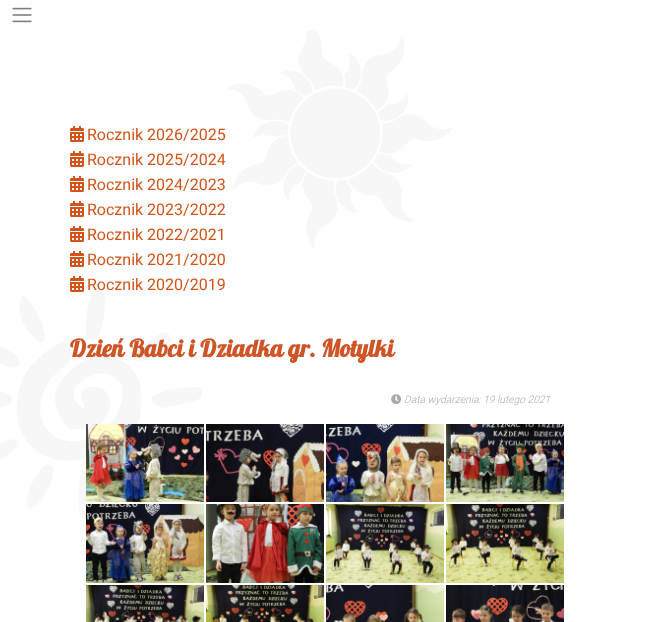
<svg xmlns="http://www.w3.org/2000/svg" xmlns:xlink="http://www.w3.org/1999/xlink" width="649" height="622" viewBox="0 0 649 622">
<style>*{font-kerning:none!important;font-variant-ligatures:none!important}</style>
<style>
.cls-1{font:16px Roboto;fill:#d15419}
.cls-2{font:bold 24px Lobster;fill:#cf5426}
.cls-3{font:italic 300 10.25px Roboto;fill:#aaaaaa}
</style>
<rect width="100%" height="100%" fill="#ffffff"/>
<image xlink:href="image0.png" x="0" y="30" width="453" height="592"/>
<image xlink:href="image1.png" x="12" y="7" width="20" height="16"/>
<image xlink:href="image2.png" x="70" y="126" width="14" height="16"/>
<image xlink:href="image2.png" x="70" y="151" width="14" height="16"/>
<image xlink:href="image2.png" x="70" y="176" width="14" height="16"/>
<image xlink:href="image2.png" x="70" y="201" width="14" height="16"/>
<image xlink:href="image2.png" x="70" y="226" width="14" height="16"/>
<image xlink:href="image2.png" x="70" y="251" width="14" height="16"/>
<image xlink:href="image2.png" x="70" y="276" width="14" height="16"/>
<image xlink:href="image3.png" x="391" y="394" width="10" height="11"/>
<image xlink:href="image4.png" x="86" y="424" width="118" height="78"/>
<image xlink:href="image5.png" x="206" y="424" width="118" height="78"/>
<image xlink:href="image6.png" x="326" y="424" width="118" height="78"/>
<image xlink:href="image7.png" x="446" y="424" width="118" height="78"/>
<image xlink:href="image8.png" x="86" y="504" width="118" height="79"/>
<image xlink:href="image9.png" x="206" y="504" width="118" height="79"/>
<image xlink:href="image10.png" x="326" y="504" width="118" height="79"/>
<image xlink:href="image11.png" x="446" y="504" width="118" height="79"/>
<image xlink:href="image12.png" x="86" y="585" width="118" height="37"/>
<image xlink:href="image13.png" x="206" y="585" width="118" height="37"/>
<image xlink:href="image14.png" x="326" y="585" width="118" height="37"/>
<image xlink:href="image15.png" x="446" y="585" width="118" height="37"/>
<text class="cls-1"><tspan x="87" y="140">Rocznik 2026/2025</tspan><tspan x="87" y="165">Rocznik 2025/2024</tspan><tspan x="87" y="190">Rocznik 2024/2023</tspan><tspan x="87" y="215">Rocznik 2023/2022</tspan><tspan x="87" y="240">Rocznik 2022/2021</tspan><tspan x="87" y="265">Rocznik 2021/2020</tspan><tspan x="87" y="290">Rocznik 2020/2019</tspan></text>
<text class="cls-2" x="70" y="357">Dzień Babci i Dziadka gr. Motylki</text>
<text class="cls-3" x="404" y="403">Data wydarzenia: 19 lutego 2021</text>
</svg>
